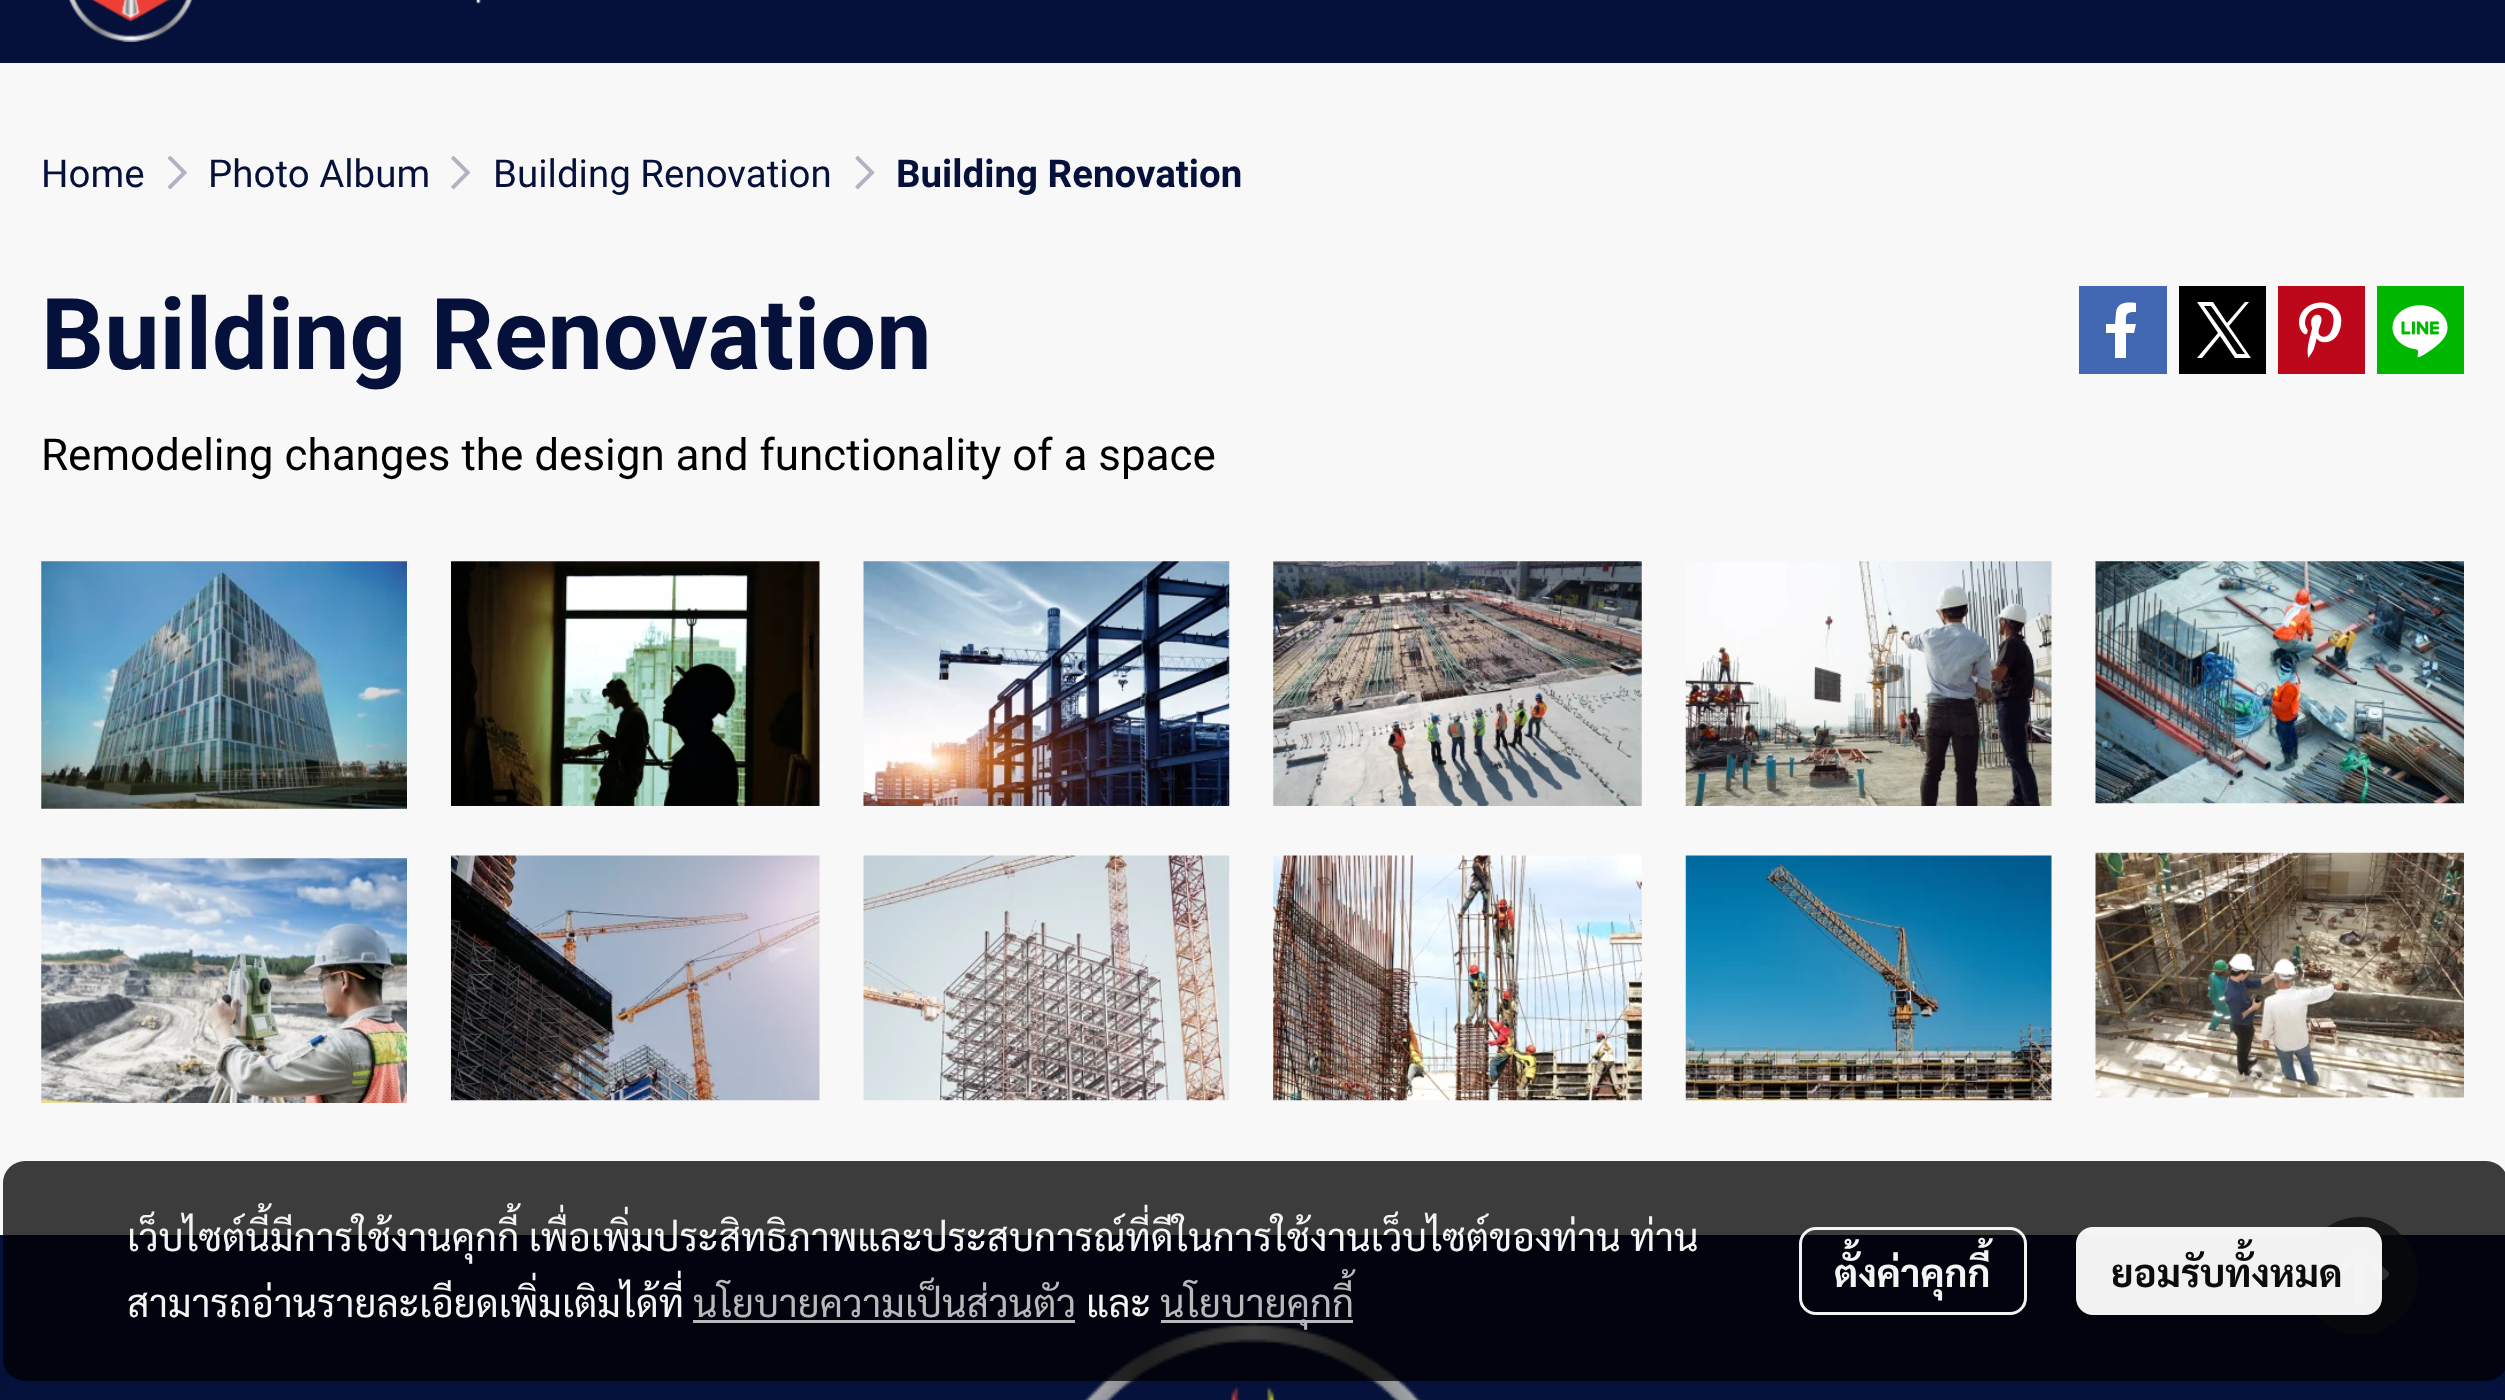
<svg xmlns="http://www.w3.org/2000/svg" xmlns:xlink="http://www.w3.org/1999/xlink" width="2505" height="1400" viewBox="0 0 2505 1400">
<style>
.cls-1{font:38.5px Roboto;fill:#06113b}
.cls-2{font:bold 38.5px Roboto;fill:#06113b}
.cls-3{font:bold 99px Roboto;fill:#06113b}
.cls-4{font:44px Roboto;fill:#000000}
.cls-5{font:38.5px Sarabun;fill:#f4f4f4}
.cls-6{font:38.5px Sarabun;fill:#b9b9bb}
.cls-7{font:bold 38.5px Sarabun;fill:#f4f4f4}
.cls-8{font:bold 38.5px Sarabun;fill:#0c0c0c}
</style>
<rect width="100%" height="100%" fill="#f8f8f8"/>
<rect fill="#06113b" x="0" y="0" width="2505" height="63"/>
<image xlink:href="image0.png" x="68" y="0" width="414" height="42"/>
<image xlink:href="image1.png" x="167" y="156" width="20" height="34"/>
<image xlink:href="image2.png" x="451" y="156" width="20" height="34"/>
<image xlink:href="image3.png" x="855" y="156" width="20" height="34"/>
<rect fill="#4267b2" x="2079" y="286" width="88" height="88"/>
<rect fill="#000000" x="2179" y="286" width="87" height="88"/>
<image xlink:href="image4.png" x="2278" y="286" width="87" height="88"/>
<image xlink:href="image5.png" x="2377" y="286" width="87" height="88"/>
<path fill="#ffffff" d="M2134 333H2126V358H2115V333H2106V324H2115L2116 313C2117 302 2127 302 2136 303V312C2125 312 2126 314 2126 324H2136Z"/>
<path fill="#ffffff" d="M2229 326L2249 302H2245L2227 323L2213 302H2197L2218 333L2197 358H2202L2220 336L2235 358H2251ZM2223 333L2204 306H2211L2245 354H2237Z"/>
<image xlink:href="image6.png" x="41" y="561" width="366" height="248"/>
<image xlink:href="image7.png" x="41" y="858" width="366" height="245"/>
<image xlink:href="image8.png" x="451" y="561" width="369" height="245"/>
<image xlink:href="image9.png" x="451" y="855" width="369" height="246"/>
<image xlink:href="image10.png" x="863" y="561" width="367" height="245"/>
<image xlink:href="image11.png" x="863" y="855" width="367" height="246"/>
<image xlink:href="image12.png" x="1273" y="561" width="369" height="245"/>
<image xlink:href="image13.png" x="1273" y="855" width="369" height="246"/>
<image xlink:href="image14.png" x="1685" y="561" width="367" height="245"/>
<image xlink:href="image15.png" x="1685" y="855" width="367" height="246"/>
<image xlink:href="image16.png" x="2095" y="561" width="369" height="243"/>
<image xlink:href="image17.png" x="2095" y="852" width="369" height="246"/>
<rect fill="#06113b" x="0" y="1235" width="2505" height="165"/>
<path fill="#2b2a2a" fill-opacity="0.7" d="M2360 1217C2327 1217 2301 1244 2301 1276C2301 1308 2327 1335 2360 1335C2392 1335 2418 1308 2418 1276C2418 1244 2392 1217 2360 1217Z"/>
<image xlink:href="image18.png" x="2330" y="1244" width="59" height="62"/>
<image xlink:href="image19.png" x="1083" y="1323" width="338" height="77"/>
<rect fill="#00354a" fill-opacity="0.15" filter="blur(14px)" x="0" y="1397" width="2505" height="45"/>
<rect fill="#000000" fill-opacity="0.76" x="3" y="1161" width="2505" height="220" rx="22"/>
<rect fill="#b9b9bb" x="693" y="1320" width="382" height="3"/>
<rect fill="#b9b9bb" x="1161" y="1320" width="192" height="3"/>
<rect fill="none" stroke="#ffffff" stroke-opacity="0.95" stroke-width="3" x="1800.5" y="1228.5" width="225" height="85" rx="15.5"/>
<rect fill="#ffffff" fill-opacity="0.95" x="2076" y="1227" width="306" height="88" rx="17"/>
<text class="cls-1" x="41" y="187">Home</text>
<text class="cls-1" x="208" y="187">Photo Album</text>
<text class="cls-1" x="493" y="187">Building Renovation</text>
<text class="cls-2" x="896" y="187">Building Renovation</text>
<text class="cls-3" x="41" y="369">Building Renovation</text>
<text class="cls-4" x="41" y="470">Remodeling changes the design and functionality of a space</text>
<text class="cls-5" x="127" y="1251">เว็บไซต์นี้มีการใช้งานคุกกี้ เพื่อเพิ่มประสิทธิภาพและประสบการณ์ที่ดีในการใช้งานเว็บไซต์ของท่าน</text>
<text class="cls-5" x="1630" y="1251">ท่าน</text>
<text class="cls-5" x="127" y="1317">สามารถอ่านรายละเอียดเพิ่มเติมได้ที่</text>
<text class="cls-6" x="693" y="1317">นโยบายความเป็นส่วนตัว</text>
<text class="cls-5" x="1086" y="1317">และ</text>
<text class="cls-6" x="1160" y="1317">นโยบายคุกกี้</text>
<text class="cls-7" x="1834" y="1287">ตั้งค่าคุกกี้</text>
<text class="cls-8" x="2111" y="1287">ยอมรับทั้งหมด</text>
</svg>
